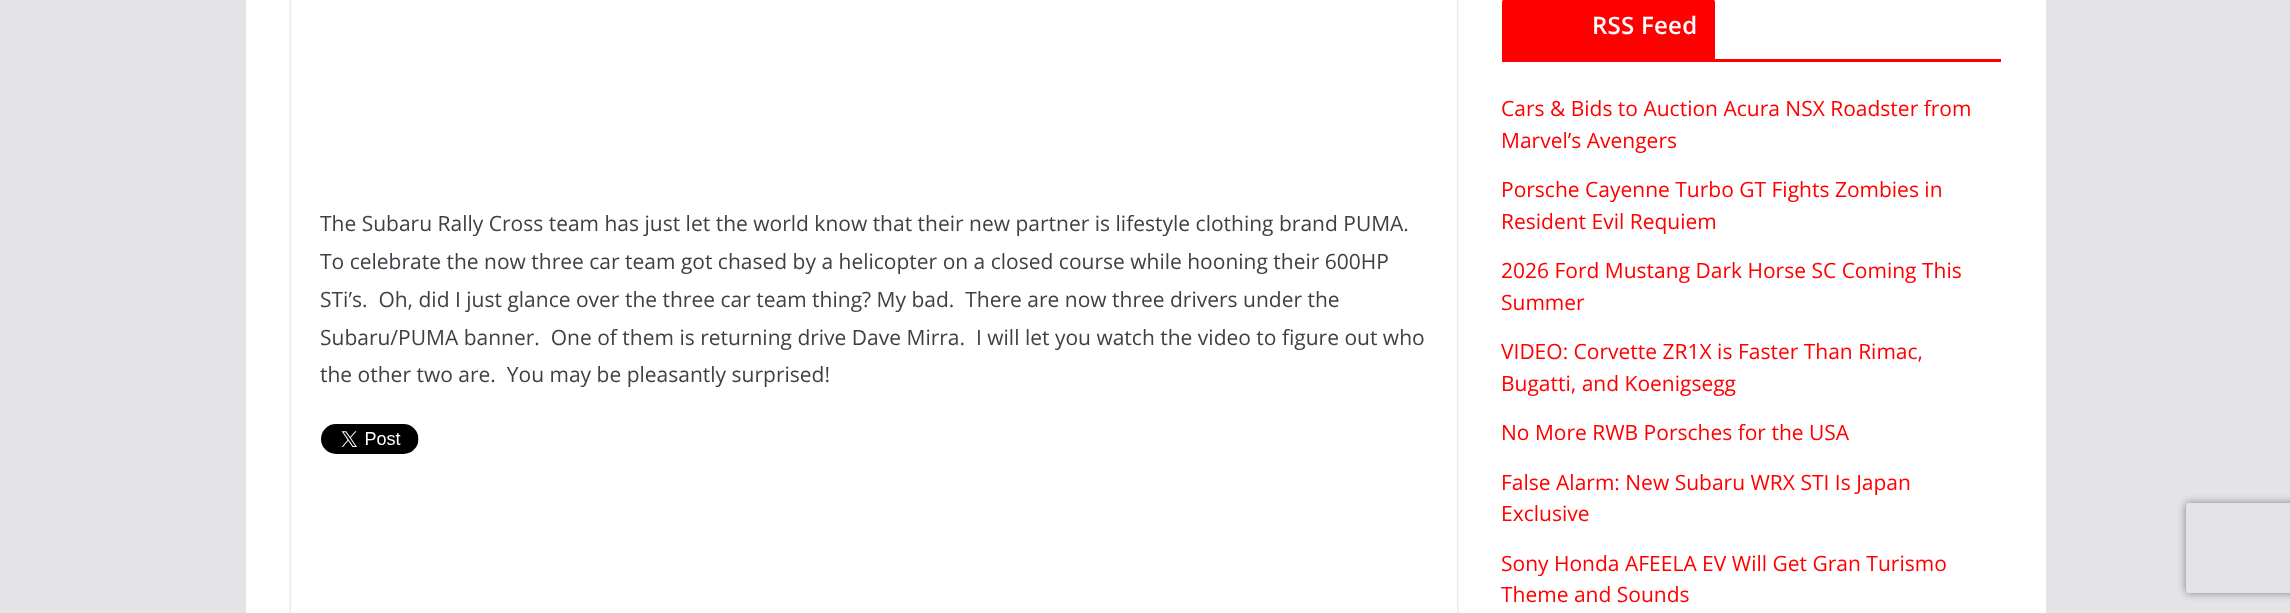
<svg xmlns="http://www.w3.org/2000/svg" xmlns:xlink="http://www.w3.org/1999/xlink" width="2290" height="613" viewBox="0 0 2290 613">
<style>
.cls-1{font:21px Open Sans;fill:#3f3f46}
.cls-2{font:600 24px Open Sans;letter-spacing:0.25px;fill:#ffffff}
.cls-3{font:21px Open Sans;fill:#ff0000}
</style>
<defs>
<clipPath id="clip1"><path d="M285 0H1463V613H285ZM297-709H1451C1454.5-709 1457-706.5 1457-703V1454C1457 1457.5 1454.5 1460 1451 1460H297C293.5 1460 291 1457.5 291 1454V-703C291-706.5 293.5-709 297-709Z" clip-rule="evenodd"/></clipPath>
<clipPath id="clip2"><path d="M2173 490H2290V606H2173ZM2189 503H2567C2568.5 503 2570 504.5 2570 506V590C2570 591.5 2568.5 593 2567 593H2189C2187.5 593 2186 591.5 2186 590V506C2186 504.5 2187.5 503 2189 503Z" clip-rule="evenodd"/></clipPath>
</defs>
<rect width="100%" height="100%" fill="#e4e4e7"/>
<rect fill="#ffffff" x="246" y="0" width="1800" height="613"/>
<g clip-path="url(#clip1)">
<rect fill="#000000" fill-opacity="0.24" filter="blur(1.5px)" x="291" y="-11" width="1166" height="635" rx="6"/>
</g>
<image xlink:href="image0.png" x="321" y="424" width="98" height="30"/>
<rect fill="#ff0000" x="1502" y="59" width="499" height="3"/>
<path fill="#ff0000" d="M1505-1H1712C1713.5-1 1715 .5 1715 2V59H1502V2C1502 .5 1503.5-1 1505-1Z"/>
<g clip-path="url(#clip2)">
<rect fill="#808080" filter="blur(4px)" x="2186" y="503" width="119" height="90" rx="3"/>
</g>
<text class="cls-1" xml:space="preserve"><tspan x="320" y="231">The Subaru Rally Cross team has just let the world know that their new partner is lifestyle clothing brand PUMA.</tspan><tspan x="320" y="269">To celebrate the now three car team got chased by a helicopter on a closed course while hooning their 600HP</tspan><tspan x="320" y="307">STi’s.  Oh, did I just glance over the three car team thing? My bad.  There are now three drivers under the</tspan><tspan x="320" y="345">Subaru/PUMA banner.  One of them is returning drive Dave Mirra.  I will let you watch the video to figure out who</tspan><tspan x="320" y="382">the other two are.  You may be pleasantly surprised!</tspan></text>
<text class="cls-2" x="1592" y="34">RSS Feed</text>
<text class="cls-3"><tspan x="1501" y="116">Cars &amp; Bids to Auction Acura NSX Roadster from</tspan><tspan x="1501" y="148">Marvel’s Avengers</tspan></text>
<text class="cls-3"><tspan x="1501" y="197">Porsche Cayenne Turbo GT Fights Zombies in</tspan><tspan x="1501" y="229">Resident Evil Requiem</tspan></text>
<text class="cls-3"><tspan x="1501" y="278">2026 Ford Mustang Dark Horse SC Coming This</tspan><tspan x="1501" y="310">Summer</tspan></text>
<text class="cls-3"><tspan x="1501" y="359">VIDEO: Corvette ZR1X is Faster Than Rimac,</tspan><tspan x="1501" y="391">Bugatti, and Koenigsegg</tspan></text>
<text class="cls-3" x="1501" y="440">No More RWB Porsches for the USA</text>
<text class="cls-3"><tspan x="1501" y="490">False Alarm: New Subaru WRX STI Is Japan</tspan><tspan x="1501" y="521">Exclusive</tspan></text>
<text class="cls-3"><tspan x="1501" y="571">Sony Honda AFEELA EV Will Get Gran Turismo</tspan><tspan x="1501" y="602">Theme and Sounds</tspan></text>
</svg>
